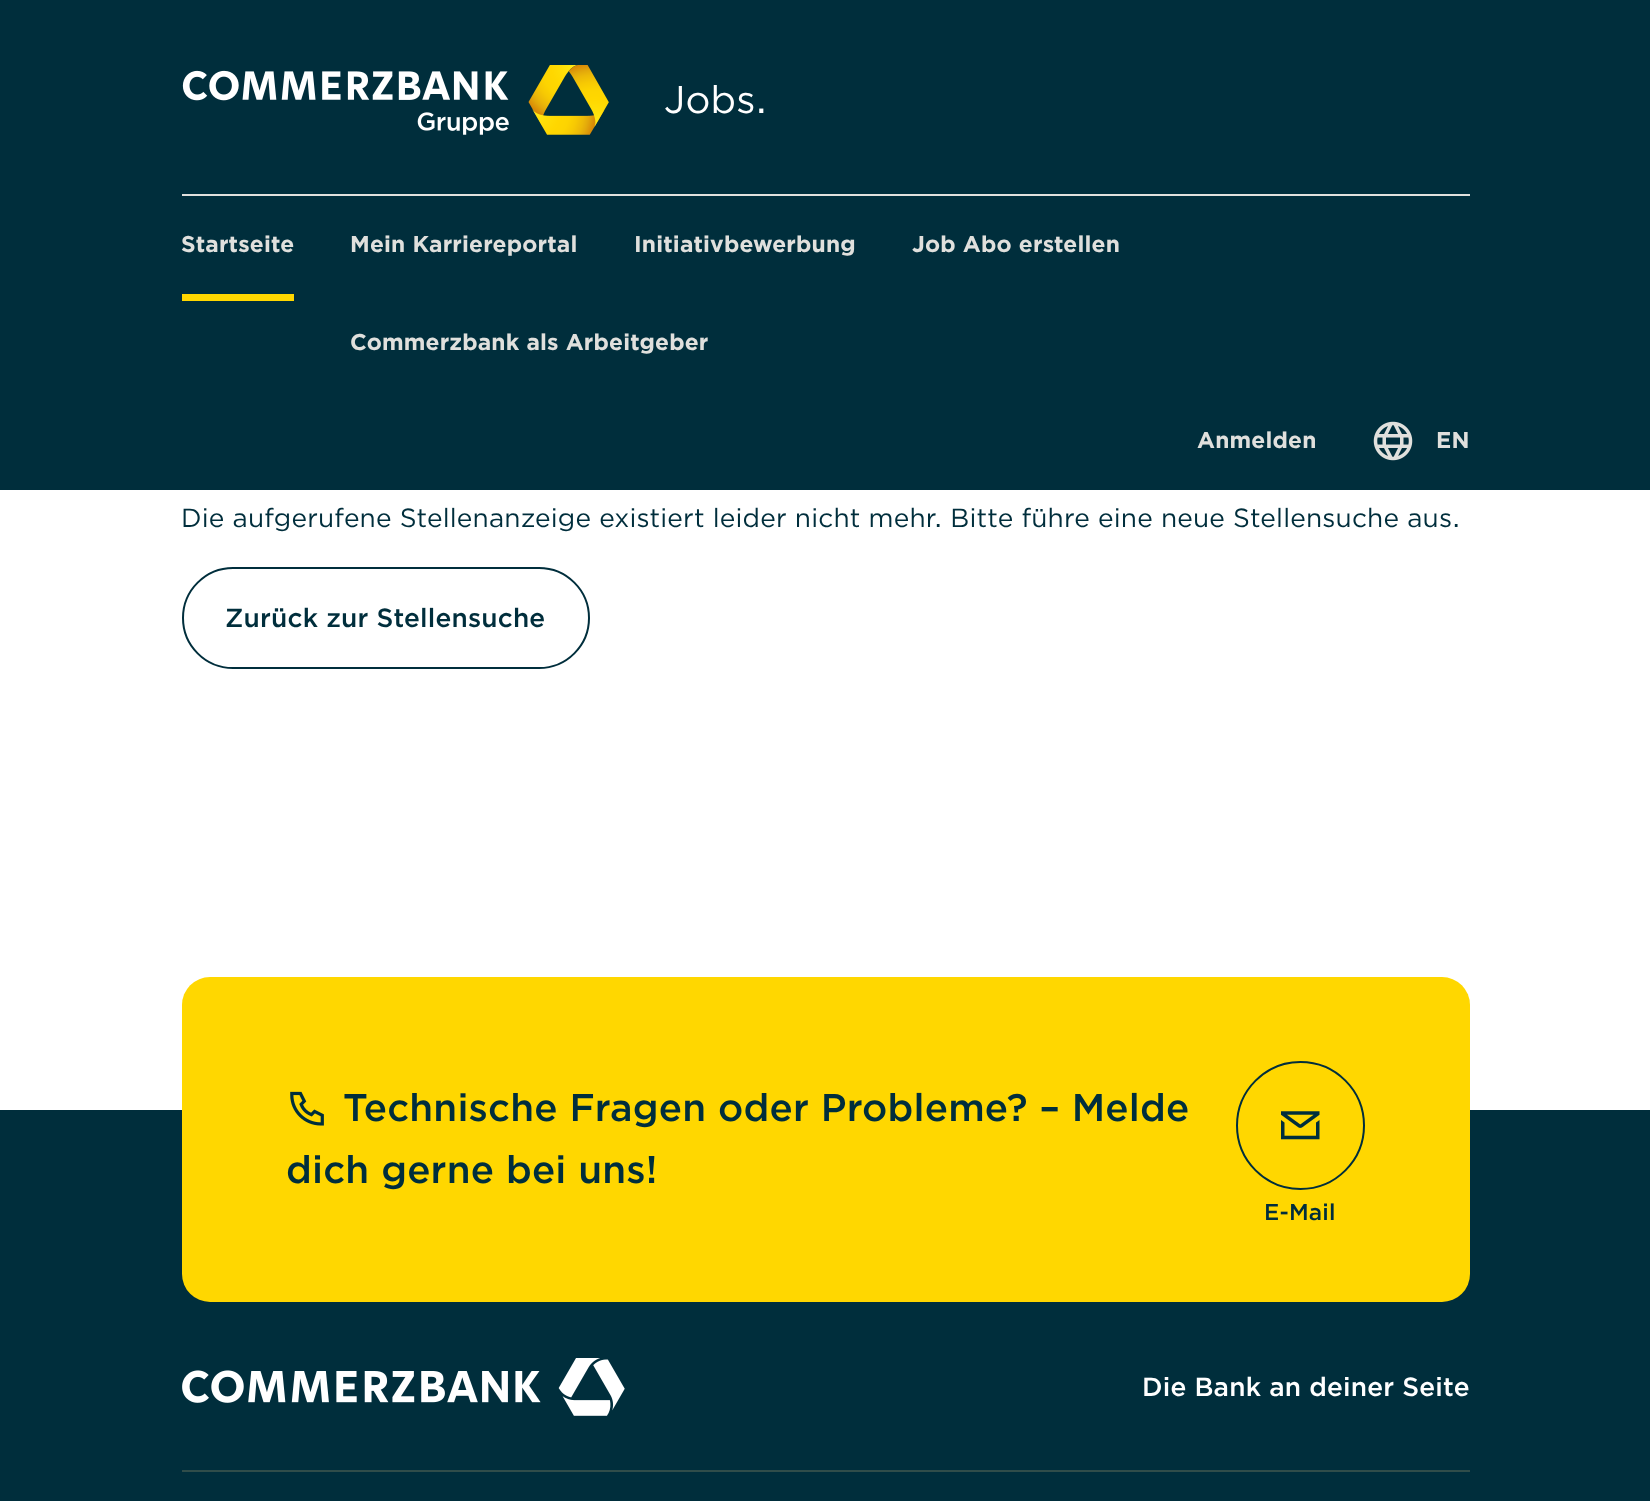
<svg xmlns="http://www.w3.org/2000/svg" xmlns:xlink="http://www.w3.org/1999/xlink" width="1650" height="1501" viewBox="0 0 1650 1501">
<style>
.cls-1{font:300 38.5px 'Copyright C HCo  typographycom';letter-spacing:0.18px;fill:#ffffff}
.cls-2{font:22.75px 'Copyright C HCo  typographycom';letter-spacing:0.18px;fill:#e0e0dd}
.cls-3{font:300 26.25px 'Copyright C HCo  typographycom';letter-spacing:0.18px;fill:#002e3c}
.cls-4{font:300 26.25px 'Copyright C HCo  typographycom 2';letter-spacing:0.18px;fill:#002e3c}
.cls-5{font:300 38.5px 'Copyright C HCo  typographycom 2';letter-spacing:0.18px;fill:#002e3c}
.cls-6{font:300 22.75px 'Copyright C HCo  typographycom 2';letter-spacing:0.18px;fill:#002e3c}
.cls-7{font:300 26.25px 'Copyright C HCo  typographycom 2';letter-spacing:0.18px;fill:#ffffff}
</style>
<rect width="100%" height="100%" fill="#ffffff"/>
<rect fill="#002e3c" x="0" y="0" width="1650" height="490"/>
<image xlink:href="image0.png" x="182" y="65" width="427" height="70"/>
<rect fill="#e0e0dd" x="182" y="194" width="1288" height="2"/>
<rect fill="#ffd700" x="182" y="294" width="112" height="7"/>
<image xlink:href="image1.png" x="1373" y="421" width="40" height="40"/>
<rect fill="none" stroke="#002e3c" stroke-width="2" x="183" y="568" width="406" height="100" rx="50"/>
<rect fill="#002e3c" x="0" y="1110" width="1650" height="391"/>
<rect fill="#ffd700" x="182" y="977" width="1288" height="325" rx="28"/>
<image xlink:href="image2.png" x="290" y="1091" width="34" height="35"/>
<circle fill="none" stroke="#002e3c" stroke-width="2" cx="1300.5" cy="1125.5" r="63.5"/>
<image xlink:href="image3.png" x="1281" y="1111" width="39" height="29"/>
<image xlink:href="image4.png" x="182" y="1370" width="359" height="33"/>
<image xlink:href="image5.png" x="558" y="1358" width="67" height="58"/>
<rect fill="#304d4a" x="182" y="1470" width="1288" height="2"/>
<text class="cls-1" x="664" y="113">Jobs.</text>
<text class="cls-2" x="181" y="252">Startseite</text>
<text class="cls-2" x="350" y="252">Mein Karriereportal</text>
<text class="cls-2" x="634" y="252">Initiativbewerbung</text>
<text class="cls-2" x="912" y="252">Job Abo erstellen</text>
<text class="cls-2" x="350" y="350">Commerzbank als Arbeitgeber</text>
<text class="cls-2" x="1197" y="448">Anmelden</text>
<text class="cls-2" x="1436" y="448">EN</text>
<text class="cls-3" x="181" y="527">Die aufgerufene Stellenanzeige existiert leider nicht mehr. Bitte führe eine neue Stellensuche aus.</text>
<text class="cls-4" x="225" y="627">Zurück zur Stellensuche</text>
<text class="cls-5" x="343" y="1121">Technische Fragen oder Probleme? – Melde</text>
<text class="cls-5" x="286" y="1183">dich gerne bei uns!</text>
<text class="cls-6" x="1264" y="1220">E-Mail</text>
<text class="cls-7" x="1142" y="1396">Die Bank an deiner Seite</text>
</svg>
